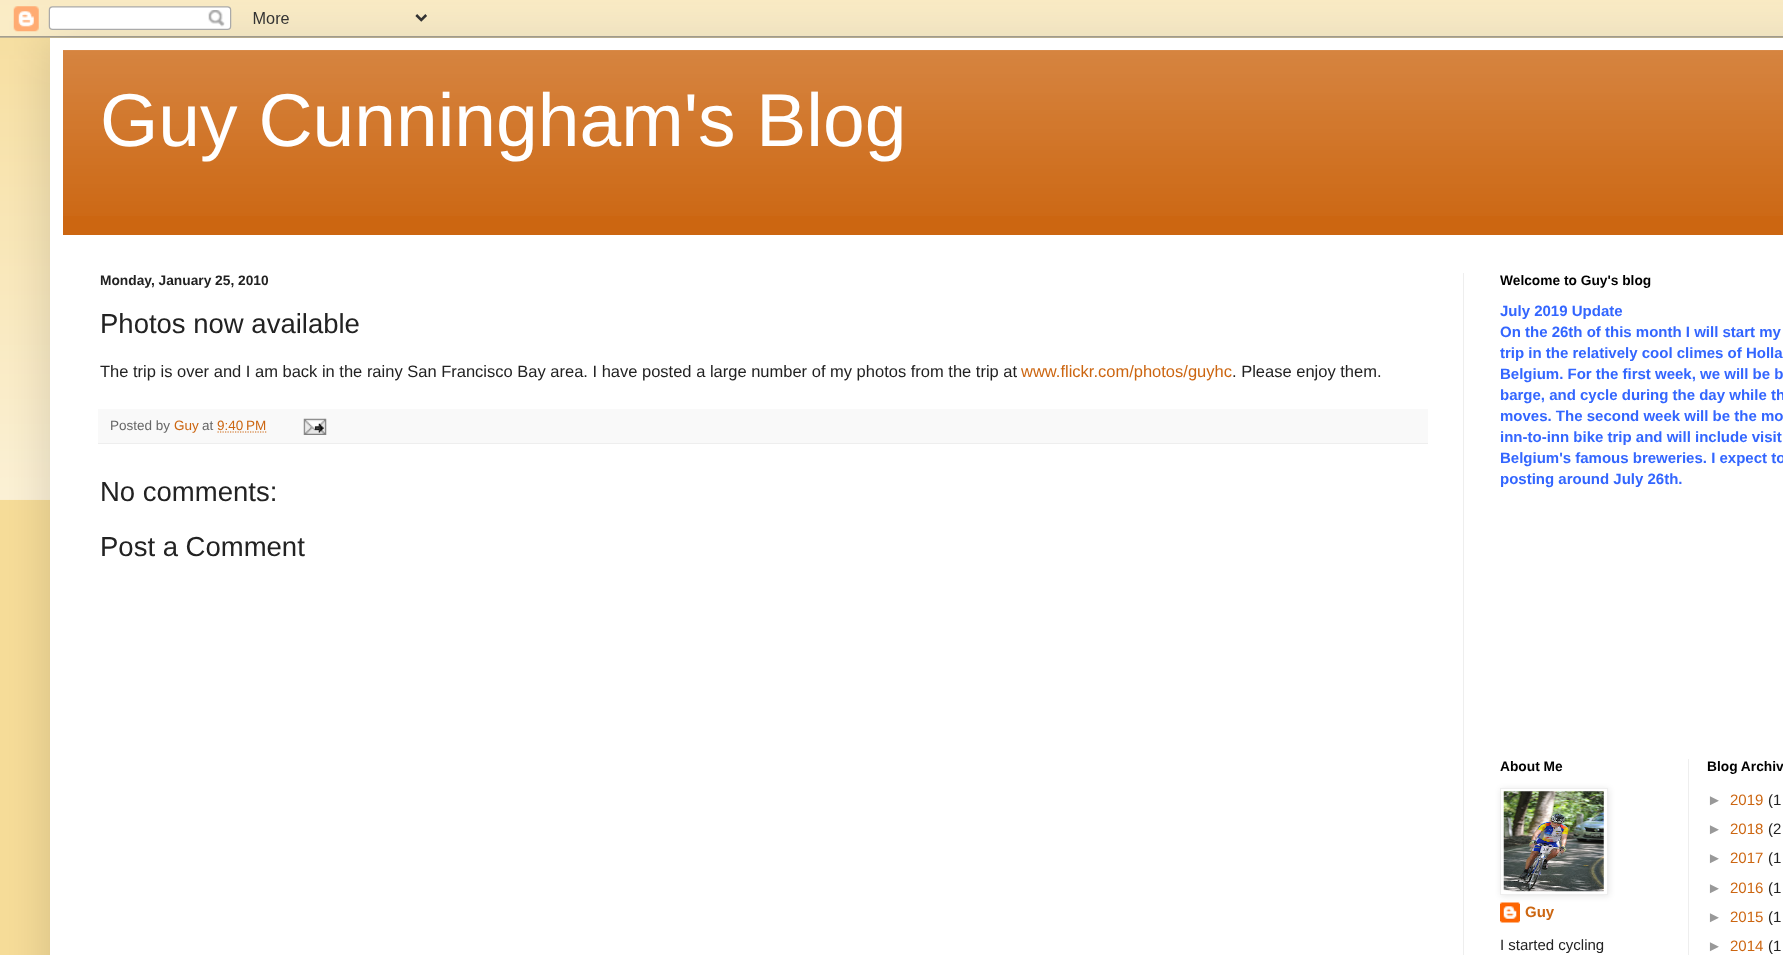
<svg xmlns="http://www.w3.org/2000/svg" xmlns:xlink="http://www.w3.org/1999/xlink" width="1783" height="955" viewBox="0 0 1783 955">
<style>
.cls-1{font:75px Liberation Sans;fill:#ffffff}
.cls-2{font:bold 13.75px Liberation Sans;fill:#222222}
.cls-3{font:27.5px Liberation Sans;fill:#222222}
.cls-4{font:16.5px Liberation Sans;fill:#222222}
.cls-5{font:16.5px Liberation Sans;fill:#cc6611}
.cls-6{font:13.5px Liberation Sans;fill:#666666}
.cls-7{font:13.5px Liberation Sans;fill:#cc6611}
.cls-8{font:bold 13.75px Liberation Sans;fill:#000000}
.cls-9{font:bold 15px Liberation Sans;fill:#3366ff}
.cls-10{font:bold 15px Liberation Sans;fill:#cc6611}
.cls-11{font:15px Liberation Sans;fill:#222222}
.cls-12{font:15px Liberation Sans;fill:#999999}
.cls-13{font:15px Liberation Sans;fill:#cc6611}
</style>
<rect width="100%" height="100%" fill="#f7dd99"/>
<image xlink:href="image0.png" x="0" y="0" width="1783" height="500"/>
<rect fill="#000000" fill-opacity="0.15" filter="blur(25px)" x="50" y="38" width="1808" height="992"/>
<image xlink:href="image1.png" x="0" y="0" width="1783" height="38"/>
<rect fill="#ffffff" x="50" y="38" width="1733" height="917"/>
<rect fill="#cc6611" x="63" y="50" width="1720" height="185"/>
<image xlink:href="image2.png" x="63" y="50" width="1720" height="166"/>
<rect fill="#eeeeee" x="1463" y="273" width="1" height="682"/>
<rect fill="#f9f9f9" x="98" y="409" width="1330" height="34"/>
<rect fill="#eeeeee" x="98" y="443" width="1330" height="1"/>
<path fill="none" stroke="#cc6611" stroke-width="1.2" stroke-dasharray="1.25 1.25" d="M217.5 432H266.5"/>
<image xlink:href="image3.png" x="303" y="418" width="24" height="17"/>
<image xlink:href="image5.png" x="1500" y="902" width="20" height="21"/>
<rect fill="#000000" fill-opacity="0.1" filter="blur(3px)" x="1501" y="789" width="108" height="107"/>
<rect fill="#ffffff" stroke="#eeeeee" x="1500.5" y="788.5" width="107" height="106"/>
<image xlink:href="image4.png" x="1503" y="791" width="101" height="101"/>
<rect fill="#eeeeee" x="1688" y="759" width="1" height="196"/>
<text class="cls-1" x="100" y="146">Guy Cunningham's Blog</text>
<text class="cls-2" x="100" y="285">Monday, January 25, 2010</text>
<text class="cls-3" x="100" y="333">Photos now available</text>
<text class="cls-4" x="100" y="377">The trip is over and I am back in the rainy San Francisco Bay area. I have posted a large number of my photos from the trip at</text>
<text class="cls-5" x="1021" y="377">www.flickr.com/photos/guyhc</text>
<text class="cls-4" x="1232" y="377">. Please enjoy them.</text>
<text class="cls-6" x="110" y="430">Posted by</text>
<text class="cls-7" x="174" y="430">Guy</text>
<text class="cls-6" x="202" y="430">at</text>
<text class="cls-7" x="217" y="430">9:40 PM</text>
<text class="cls-3" x="100" y="501">No comments:</text>
<text class="cls-3" x="100" y="556">Post a Comment</text>
<text class="cls-8" x="1500" y="285">Welcome to Guy's blog</text>
<text class="cls-9"><tspan x="1500" y="316">July 2019 Update</tspan><tspan x="1500" y="337">On the 26th of this month I will start my</tspan><tspan x="1500" y="358">trip in the relatively cool climes of Holla</tspan><tspan x="1500" y="379">Belgium. For the first week, we will be b</tspan><tspan x="1500" y="400">barge, and cycle during the day while th</tspan><tspan x="1500" y="421">moves. The second week will be the mo</tspan><tspan x="1500" y="442">inn-to-inn bike trip and will include visit</tspan><tspan x="1500" y="463">Belgium's famous breweries. I expect to</tspan><tspan x="1500" y="484">posting around July 26th.</tspan></text>
<text class="cls-8" x="1500" y="771">About Me</text>
<text class="cls-10" x="1525" y="917">Guy</text>
<text class="cls-11" x="1500" y="950">I started cycling</text>
<text class="cls-8" x="1707" y="771">Blog Archiv</text>
<text class="cls-12" x="1707" y="805">►</text>
<text class="cls-13" x="1730" y="805">2019</text>
<text class="cls-11" x="1768" y="805">(1</text>
<text class="cls-12" x="1707" y="834">►</text>
<text class="cls-13" x="1730" y="834">2018</text>
<text class="cls-11" x="1768" y="834">(2</text>
<text class="cls-12" x="1707" y="863">►</text>
<text class="cls-13" x="1730" y="863">2017</text>
<text class="cls-11" x="1768" y="863">(1</text>
<text class="cls-12" x="1707" y="893">►</text>
<text class="cls-13" x="1730" y="893">2016</text>
<text class="cls-11" x="1768" y="893">(1</text>
<text class="cls-12" x="1707" y="922">►</text>
<text class="cls-13" x="1730" y="922">2015</text>
<text class="cls-11" x="1768" y="922">(1</text>
<text class="cls-12" x="1707" y="951">►</text>
<text class="cls-13" x="1730" y="951">2014</text>
<text class="cls-11" x="1768" y="951">(1</text>
</svg>
